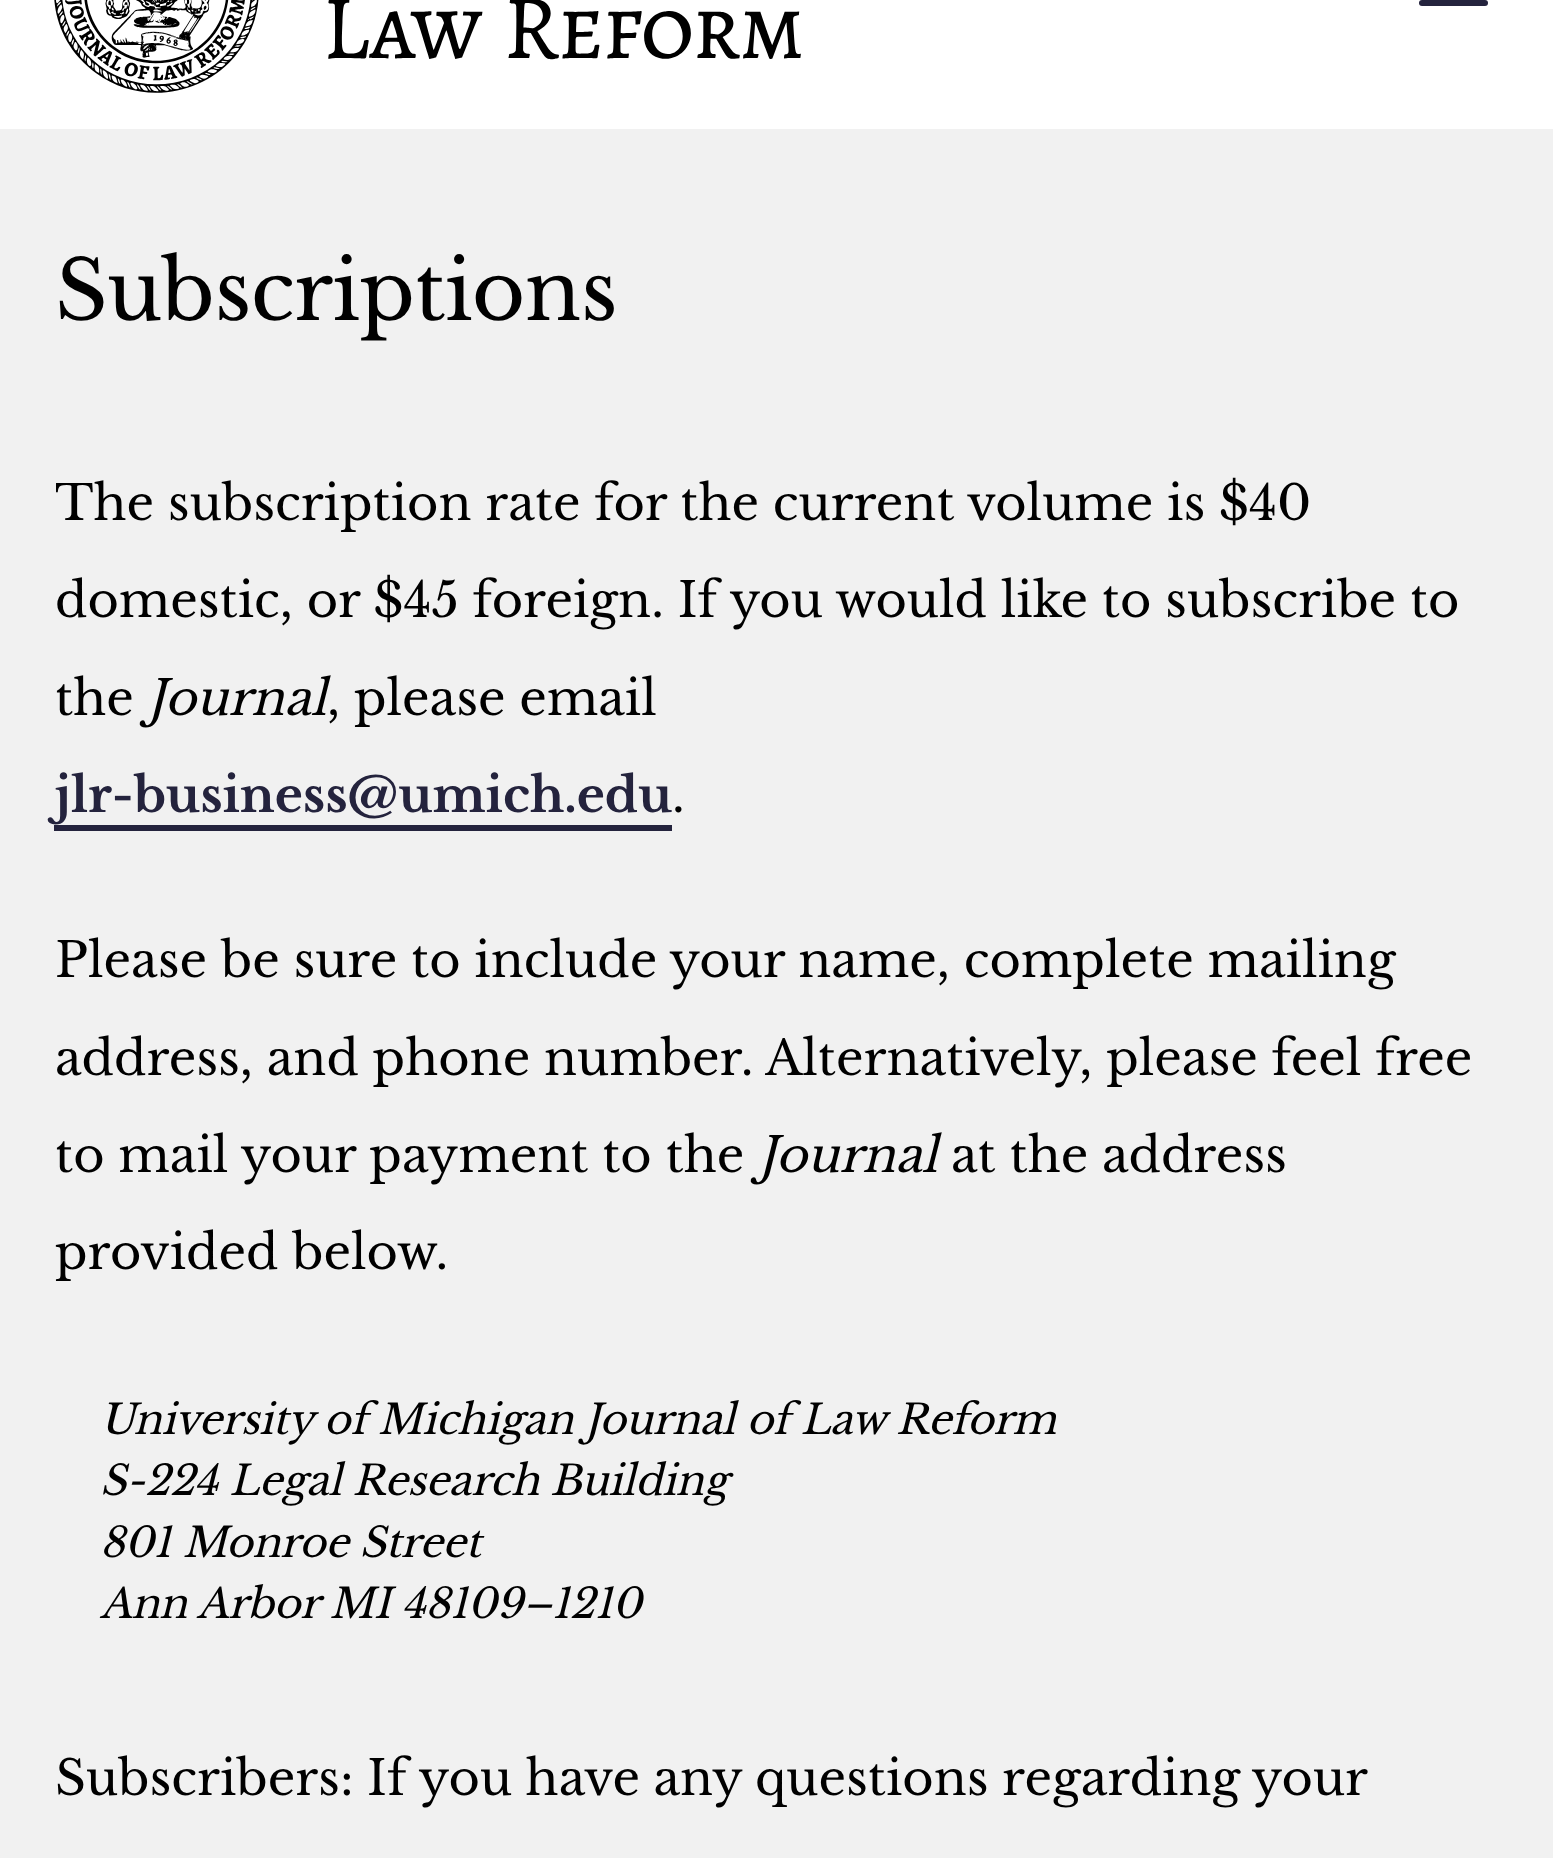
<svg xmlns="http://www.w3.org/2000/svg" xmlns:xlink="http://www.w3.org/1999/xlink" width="1553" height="1858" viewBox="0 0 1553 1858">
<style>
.cls-1{font:82px Libre Baskerville;letter-spacing:-0.75px;fill:#000000}
.cls-2{font:48px Libre Baskerville;fill:#000000}
.cls-3{font:italic 48px Libre Baskerville;fill:#000000}
.cls-4{font:bold 48px Libre Baskerville;fill:#24233d}
.cls-5{font:italic 41px Libre Baskerville;letter-spacing:-0.4px;fill:#000000}
</style>
<rect width="100%" height="100%" fill="#f1f1f1"/>
<rect fill="#ffffff" x="0" y="0" width="1553" height="129"/>
<image xlink:href="image0.png" x="54" y="0" width="747" height="93"/>
<rect fill="#24233d" x="1419" y="0" width="69" height="6" rx="3"/>
<rect fill="#24233d" x="54" y="825" width="618" height="6"/>
<text class="cls-1" x="55" y="320">Subscriptions</text>
<text class="cls-2" x="55" y="520">The subscription rate for the current volume is $40</text>
<text class="cls-2" x="55" y="617">domestic, or $45 foreign. If you would like to subscribe to</text>
<text class="cls-2" x="55" y="715">the</text>
<text class="cls-3" x="147" y="715">Journal</text>
<text class="cls-2" x="327" y="715">, please email</text>
<text class="cls-4" x="55" y="812">jlr-business@umich.edu</text>
<text class="cls-2" x="672" y="812">.</text>
<text class="cls-2" x="55" y="977">Please be sure to include your name, complete mailing</text>
<text class="cls-2" x="55" y="1075">address, and phone number. Alternatively, please feel free</text>
<text class="cls-2" x="55" y="1172">to mail your payment to the</text>
<text class="cls-3" x="758" y="1172">Journal</text>
<text class="cls-2" x="951" y="1172">at the address</text>
<text class="cls-2" x="55" y="1269">provided below.</text>
<text class="cls-5"><tspan x="100" y="1434">University of Michigan Journal of Law Reform</tspan><tspan x="100" y="1495">S-224 Legal Research Building</tspan><tspan x="100" y="1557">801 Monroe Street</tspan><tspan x="100" y="1618">Ann Arbor MI 48109–1210</tspan></text>
<text class="cls-2" x="55" y="1795" word-spacing="-0.25">Subscribers: If you have any questions regarding your</text>
</svg>
